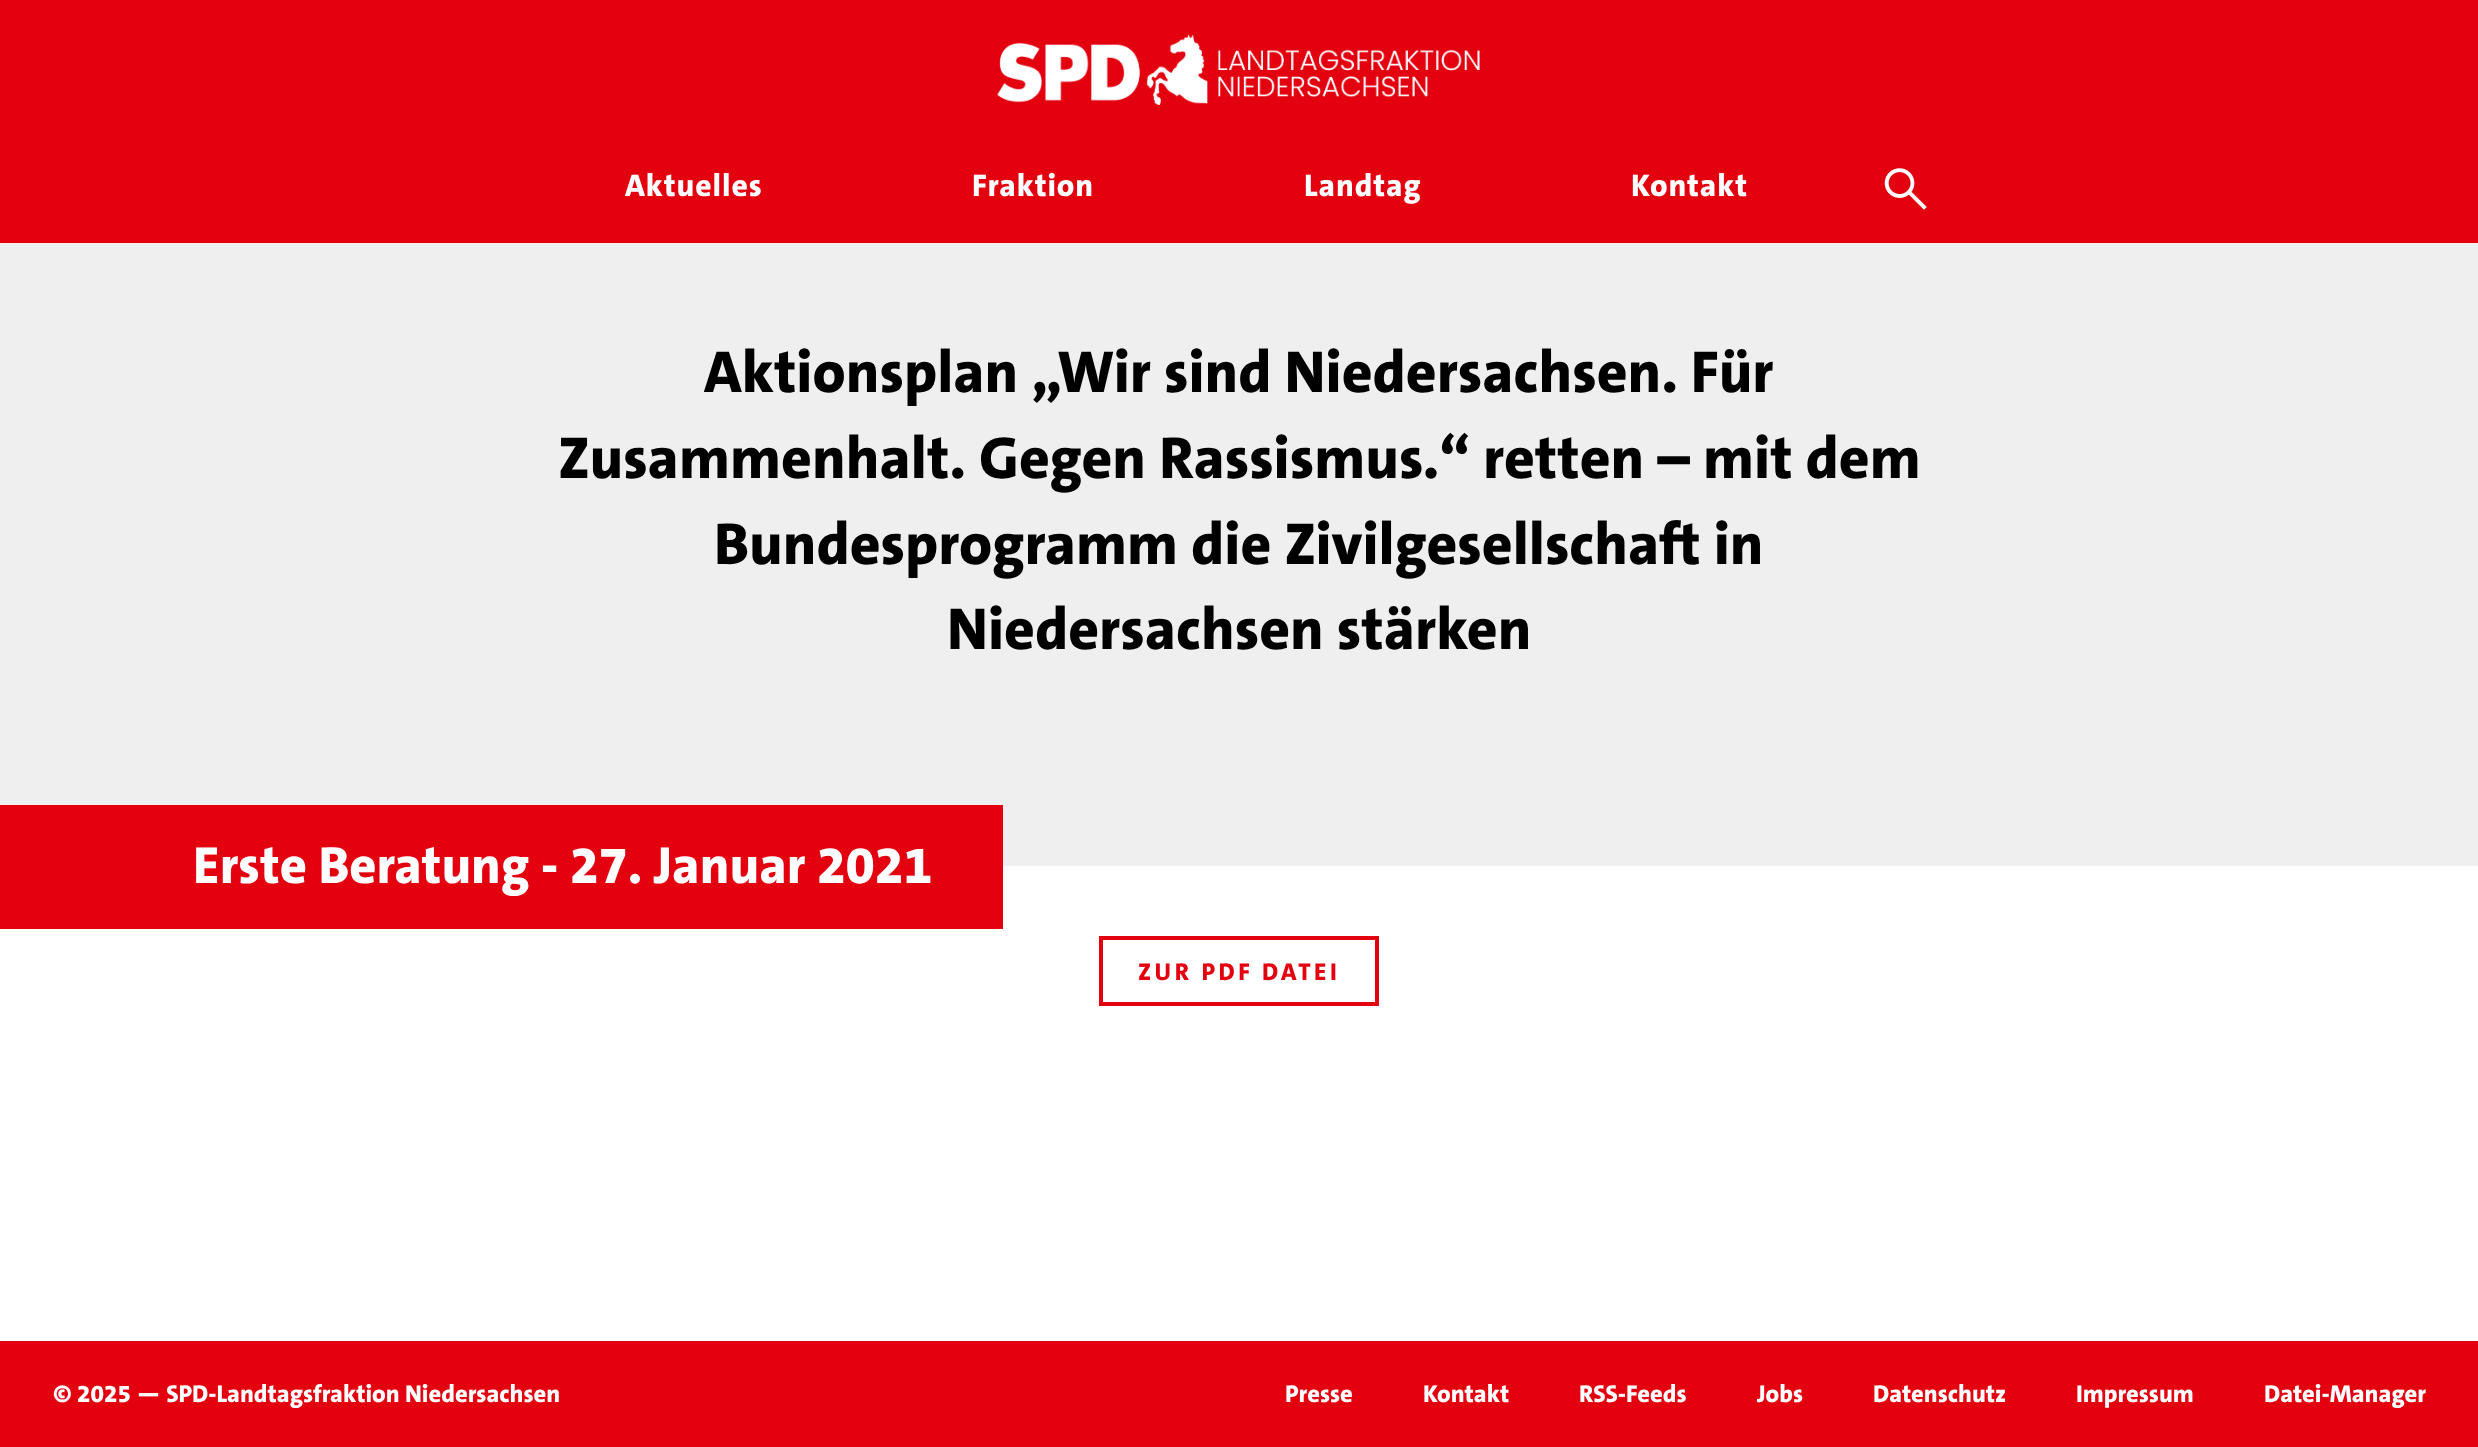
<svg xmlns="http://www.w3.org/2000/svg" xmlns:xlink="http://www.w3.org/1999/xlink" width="2478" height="1447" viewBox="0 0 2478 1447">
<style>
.cls-1{font:800 31.5px 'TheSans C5';letter-spacing:0.9px;fill:#ffffff}
.cls-2{font:800 59.5px 'TheSans C5';fill:#000000}
.cls-3{font:800 52.5px 'TheSans C5';fill:#ffffff}
.cls-4{font:800 24.5px 'TheSans C5';letter-spacing:3.5px;fill:#e3000f}
.cls-5{font:800 24.5px 'TheSans C5';fill:#ffffff}
</style>
<rect width="100%" height="100%" fill="#ffffff"/>
<rect fill="#e3000f" x="0" y="0" width="2478" height="243"/>
<image xlink:href="image0.png" x="997" y="35" width="483" height="70"/>
<image xlink:href="image1.png" x="1884" y="168" width="43" height="42"/>
<rect fill="#efefef" x="0" y="243" width="2478" height="623"/>
<rect fill="#e3000f" x="0" y="805" width="1003" height="124"/>
<rect fill="none" stroke="#e3000f" stroke-width="4" x="1101" y="938" width="276" height="66"/>
<rect fill="#e3000f" x="0" y="1341" width="2478" height="106"/>
<text class="cls-1" x="625" y="196">Aktuelles</text>
<text class="cls-1" x="972" y="196">Fraktion</text>
<text class="cls-1" x="1304" y="196">Landtag</text>
<text class="cls-1" x="1631" y="196">Kontakt</text>
<text class="cls-2" x="704" y="392">Aktionsplan „Wir sind Niedersachsen. Für</text>
<text class="cls-2" x="558" y="478">Zusammenhalt. Gegen Rassismus.“ retten – mit dem</text>
<text class="cls-2" x="714" y="564">Bundesprogramm die Zivilgesellschaft in</text>
<text class="cls-2" x="947" y="649">Niedersachsen stärken</text>
<text class="cls-3" x="193" y="883">Erste Beratung - 27. Januar 2021</text>
<text class="cls-4" x="1138" y="980">ZUR PDF DATEI</text>
<text class="cls-5" x="53" y="1402">© 2025 — SPD-Landtagsfraktion Niedersachsen</text>
<text class="cls-5" x="1285" y="1402">Presse</text>
<text class="cls-5" x="1423" y="1402">Kontakt</text>
<text class="cls-5" x="1579" y="1402">RSS-Feeds</text>
<text class="cls-5" x="1757" y="1402">Jobs</text>
<text class="cls-5" x="1873" y="1402">Datenschutz</text>
<text class="cls-5" x="2076" y="1402">Impressum</text>
<text class="cls-5" x="2264" y="1402">Datei-Manager</text>
</svg>
